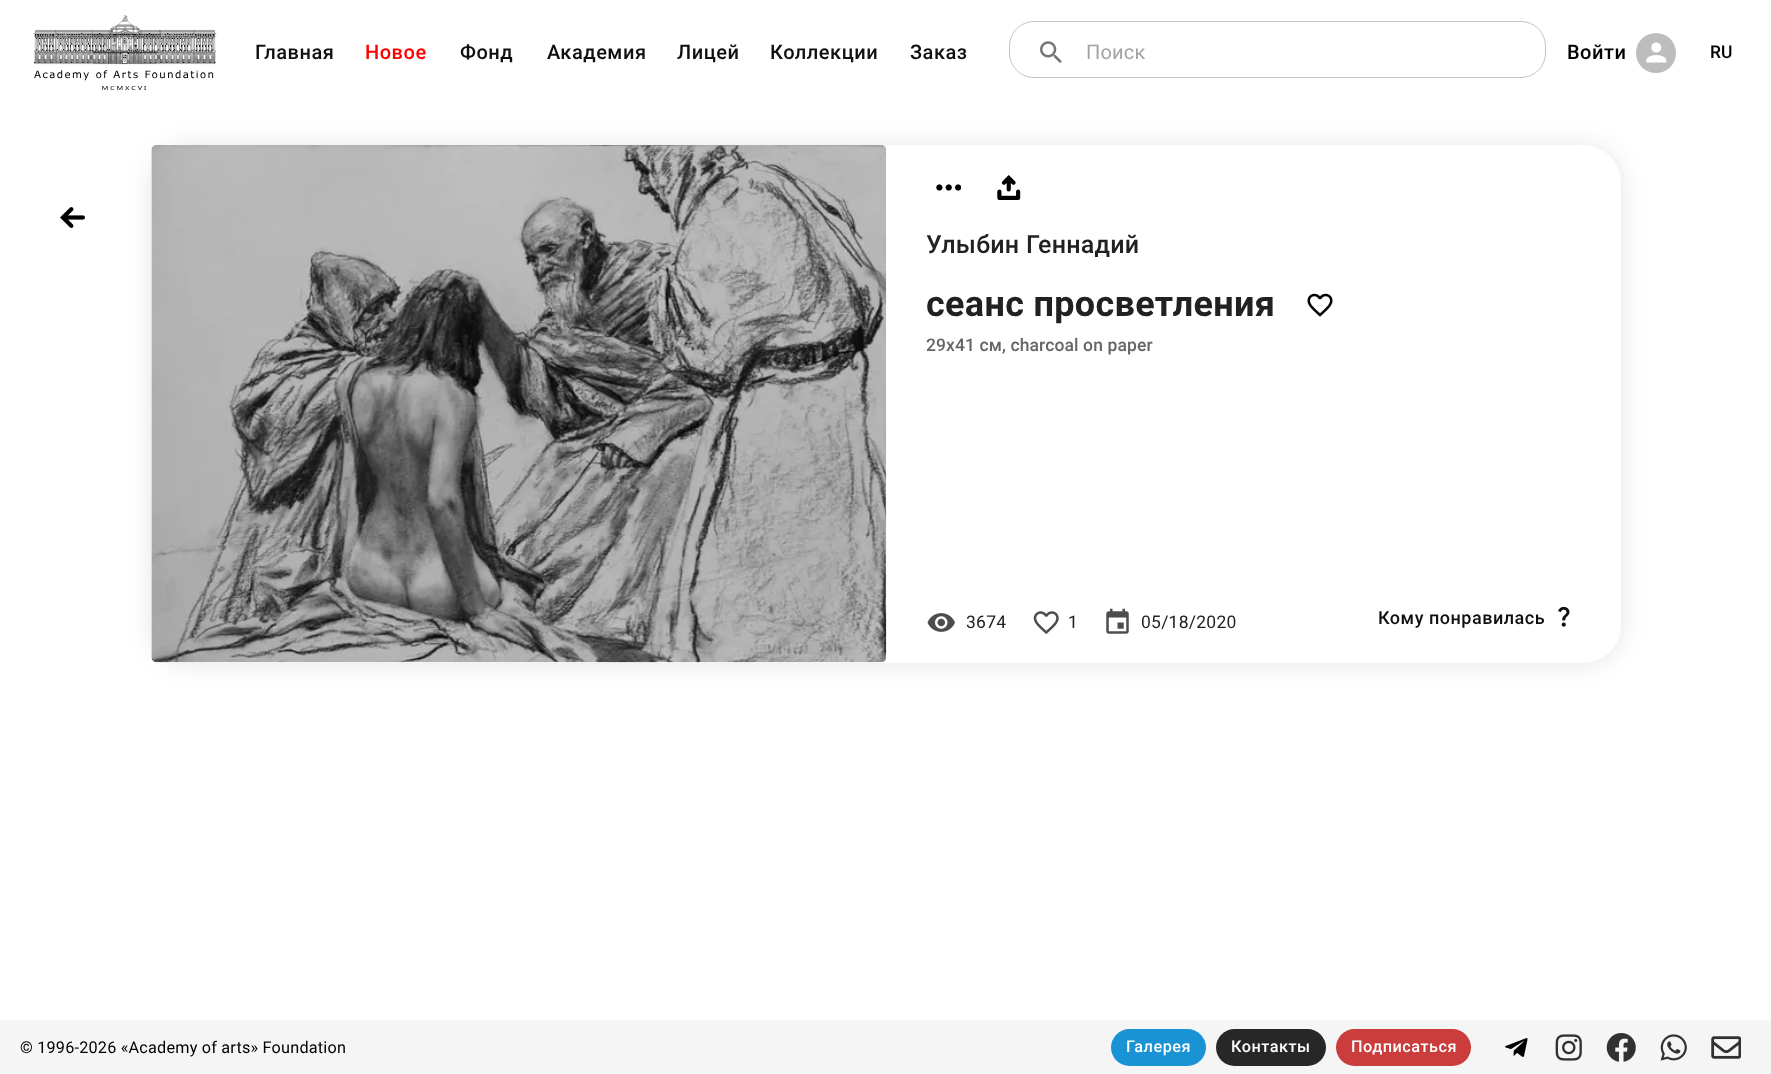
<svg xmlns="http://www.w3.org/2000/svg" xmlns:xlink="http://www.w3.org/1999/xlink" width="1771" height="1074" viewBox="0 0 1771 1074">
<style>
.cls-1{font:500 20px Roboto;letter-spacing:0.5px;fill:#101010}
.cls-2{font:500 20px Roboto;letter-spacing:0.5px;fill:#ff0000}
.cls-3{font:20px Roboto;letter-spacing:0.2px;fill:#a2a2a2}
.cls-4{font:500 20px Roboto;letter-spacing:0.5px;fill:#000000}
.cls-5{font:500 17.5px Roboto;fill:#000000}
.cls-6{font:500 25px Roboto;letter-spacing:0.25px;fill:#212121}
.cls-7{font:bold 36px Roboto;letter-spacing:0.3px;fill:#212121}
.cls-8{font:500 17.5px Roboto;letter-spacing:0.1px;fill:#666666}
.cls-9{font:17.5px Roboto;letter-spacing:0.25px;fill:#212121}
.cls-10{font:500 18px Roboto;letter-spacing:0.5px;fill:#101010}
.cls-11{font:16.25px Roboto;letter-spacing:0.2px;fill:#000000}
.cls-12{font:500 16.25px Roboto;letter-spacing:0.5px;fill:#fefefe}
</style>
<defs>
<clipPath id="clip1"><path d="M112 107H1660V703H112ZM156 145H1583C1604 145 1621 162 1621 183V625C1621 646 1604 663 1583 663H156C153 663 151 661 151 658V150C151 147 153 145 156 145Z" clip-rule="evenodd"/></clipPath>
</defs>
<rect width="100%" height="100%" fill="#ffffff"/>
<image xlink:href="image0.png" x="33" y="15" width="184" height="75"/>
<image xlink:href="image1.png" x="1040" y="41" width="22" height="22"/>
<rect fill="none" stroke="#c4c4c4" x="1009.5" y="21.5" width="536" height="56" rx="24.5"/>
<circle fill="#bdbdbd" cx="1656" cy="53" r="20"/>
<image xlink:href="image2.png" x="1646" y="42" width="21" height="21"/>
<image xlink:href="image3.png" x="60" y="207" width="25" height="21"/>
<g clip-path="url(#clip1)">
<rect fill="#000000" fill-opacity="0.1" filter="blur(12.5px)" x="151" y="146" width="1470" height="518" rx="38"/>
</g>
<image xlink:href="image4.png" x="151" y="145" width="736" height="518"/>
<image xlink:href="image5.png" x="936" y="184" width="25" height="7"/>
<image xlink:href="image6.png" x="997" y="175" width="24" height="25"/>
<image xlink:href="image7.png" x="1307" y="293" width="26" height="24"/>
<image xlink:href="image8.png" x="927" y="613" width="28" height="19"/>
<image xlink:href="image9.png" x="1033" y="611" width="26" height="24"/>
<image xlink:href="image10.png" x="1106" y="608" width="23" height="26"/>
<image xlink:href="image11.png" x="1558" y="606" width="12" height="21"/>
<rect fill="#f5f5f5" x="0" y="1020" width="1771" height="54"/>
<rect fill="#1a93d5" x="1111" y="1029" width="95" height="37" rx="18.5"/>
<rect fill="#272727" x="1216" y="1029" width="110" height="37" rx="18.5"/>
<rect fill="#cb3d3d" x="1336" y="1029" width="135" height="37" rx="18.5"/>
<image xlink:href="image12.png" x="1505" y="1038" width="23" height="19"/>
<image xlink:href="image13.png" x="1555" y="1034" width="27" height="27"/>
<image xlink:href="image14.png" x="1606" y="1033" width="30" height="29"/>
<image xlink:href="image15.png" x="1660" y="1034" width="27" height="27"/>
<image xlink:href="image16.png" x="1711" y="1036" width="30" height="23"/>
<text class="cls-1" x="255" y="59">Главная</text>
<text class="cls-2" x="365" y="59">Новое</text>
<text class="cls-1" x="460" y="59">Фонд</text>
<text class="cls-1" x="547" y="59">Академия</text>
<text class="cls-1" x="677" y="59">Лицей</text>
<text class="cls-1" x="770" y="59">Коллекции</text>
<text class="cls-1" x="910" y="59">Заказ</text>
<text class="cls-3" x="1086" y="59">Поиск</text>
<text class="cls-4" x="1567" y="59">Войти</text>
<text class="cls-5" x="1710" y="58">RU</text>
<text class="cls-6" x="926" y="253">Улыбин Геннадий</text>
<text class="cls-7" x="926" y="316">сеанс просветления</text>
<text class="cls-8" x="926" y="351">29x41 см, charcoal on paper</text>
<text class="cls-9" x="966" y="628">3674</text>
<text class="cls-9" x="1068" y="628">1</text>
<text class="cls-9" x="1141" y="628">05/18/2020</text>
<text class="cls-10" x="1378" y="624">Кому понравилась</text>
<text class="cls-11" x="20" y="1053">© 1996-2026 «Academy of arts» Foundation</text>
<text class="cls-12" x="1126" y="1052">Галерея</text>
<text class="cls-12" x="1231" y="1052">Контакты</text>
<text class="cls-12" x="1351" y="1052">Подписаться</text>
</svg>
